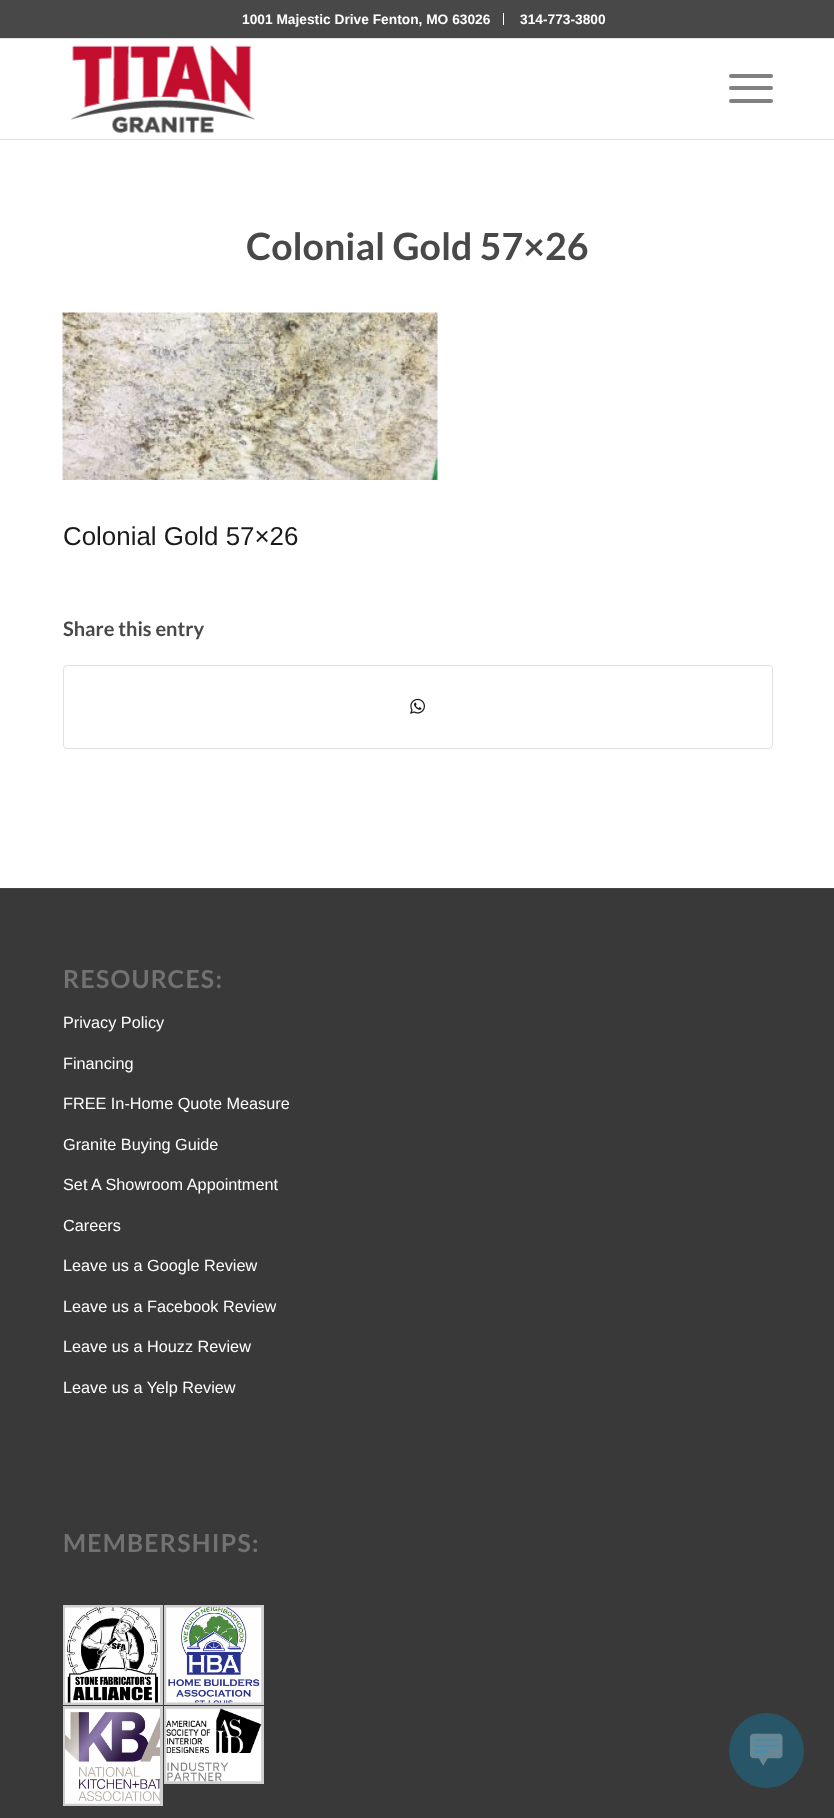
<svg xmlns="http://www.w3.org/2000/svg" xmlns:xlink="http://www.w3.org/1999/xlink" width="834" height="1818" viewBox="0 0 834 1818">
<style>
.cls-1{font:bold 13.75px Liberation Sans;fill:#ffffff}
.cls-2{font:bold 37.5px Lato;fill:#484848}
.cls-3{font:25.9px Liberation Sans;fill:#1a1a1a}
.cls-4{font:bold 20px Lato;fill:#484848}
.cls-5{font:bold 24.75px Lato;letter-spacing:1.25px;fill:#727272}
.cls-6{font:16.25px Liberation Sans;fill:#ffffff}
</style>
<rect width="100%" height="100%" fill="#ffffff"/>
<rect fill="#484848" x="0" y="0" width="834" height="38"/>
<rect fill="#e1e1e1" x="0" y="38" width="834" height="1"/>
<rect fill="#ffffff" x="503" y="13" width="1" height="12"/>
<rect fill="#e1e1e1" x="0" y="139" width="834" height="1"/>
<image xlink:href="image0.png" x="70" y="45" width="185" height="88"/>
<rect fill="#808080" x="729" y="86" width="44" height="4" rx="2"/>
<rect fill="#808080" x="729" y="74" width="44" height="4" rx="2"/>
<rect fill="#808080" x="729" y="99" width="44" height="4" rx="2"/>
<image xlink:href="image1.png" x="62" y="312" width="376" height="168"/>
<rect fill="none" stroke="#e1e1e1" x="63.5" y="665.5" width="709" height="83" rx="3.5"/>
<image xlink:href="image2.png" x="410" y="698" width="15" height="16"/>
<rect fill="#393939" x="0" y="889" width="834" height="929"/>
<rect fill="#444444" x="0" y="888" width="834" height="1"/>
<rect fill="none" stroke="#cfcfcf" stroke-width="3" x="64.5" y="1606.5" width="97" height="97"/>
<image xlink:href="image3.png" x="65" y="1607" width="95" height="96"/>
<rect fill="none" stroke="#cfcfcf" stroke-width="3" x="165.5" y="1606.5" width="97" height="97"/>
<image xlink:href="image4.png" x="166" y="1607" width="96" height="96"/>
<rect fill="none" stroke="#cfcfcf" stroke-width="3" x="64.5" y="1707.5" width="97" height="97"/>
<image xlink:href="image5.png" x="65" y="1708" width="95" height="96"/>
<rect fill="none" stroke="#cfcfcf" stroke-width="3" x="165.5" y="1707.5" width="97" height="75"/>
<image xlink:href="image6.png" x="166" y="1708" width="96" height="74"/>
<circle fill="#295568" cx="766.5" cy="1750.5" r="37.5"/>
<image xlink:href="image7.png" x="750" y="1733" width="33" height="33"/>
<text class="cls-1" x="242" y="24">1001 Majestic Drive Fenton, MO 63026</text>
<text class="cls-1" x="520" y="24">314-773-3800</text>
<text class="cls-2" x="246" y="260">Colonial Gold 57×26</text>
<text class="cls-3" x="63" y="545">Colonial Gold 57×26</text>
<text class="cls-4" x="63" y="636">Share this entry</text>
<text class="cls-5" x="63" y="988">RESOURCES:</text>
<text class="cls-6" x="63" y="1028">Privacy Policy</text>
<text class="cls-6" x="63" y="1069">Financing</text>
<text class="cls-6" x="63" y="1109">FREE In-Home Quote Measure</text>
<text class="cls-6" x="63" y="1150">Granite Buying Guide</text>
<text class="cls-6" x="63" y="1190">Set A Showroom Appointment</text>
<text class="cls-6" x="63" y="1231">Careers</text>
<text class="cls-6" x="63" y="1271">Leave us a Google Review</text>
<text class="cls-6" x="63" y="1312">Leave us a Facebook Review</text>
<text class="cls-6" x="63" y="1352">Leave us a Houzz Review</text>
<text class="cls-6" x="63" y="1393">Leave us a Yelp Review</text>
<text class="cls-5" x="63" y="1552">MEMBERSHIPS:</text>
</svg>
